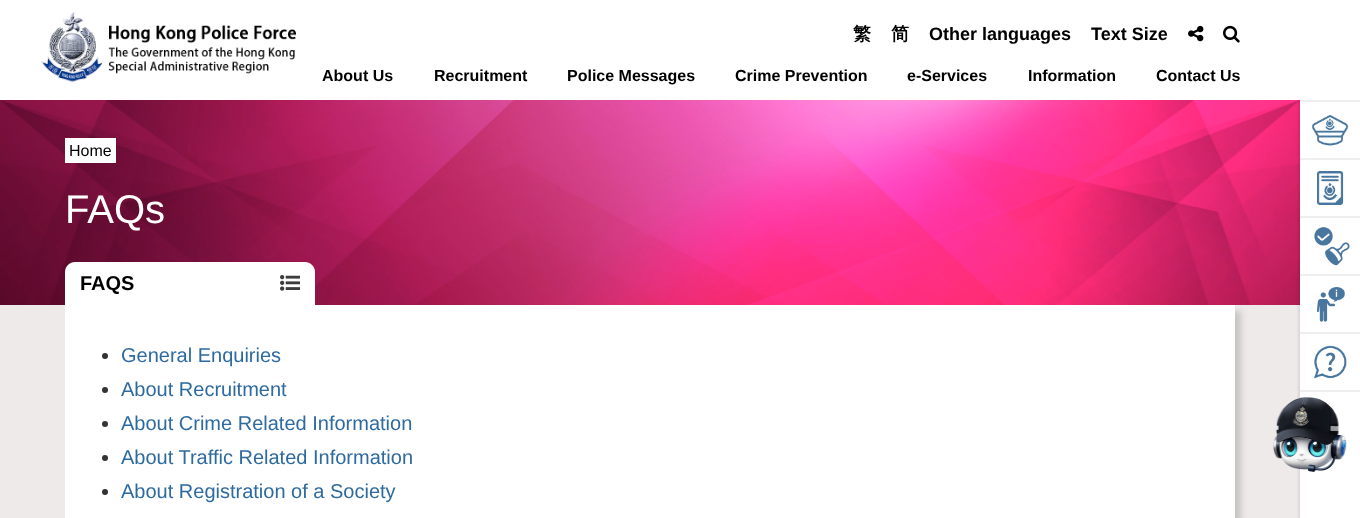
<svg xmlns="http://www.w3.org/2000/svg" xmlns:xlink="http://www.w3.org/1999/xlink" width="1360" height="518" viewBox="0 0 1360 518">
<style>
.cls-1{font:bold 18px WenQuanYi Zen Hei;fill:#000000}
.cls-2{font:bold 18px Liberation Sans;fill:#000000}
.cls-3{font:bold 16px Liberation Sans;fill:#000000}
.cls-4{font:16px Liberation Sans;fill:#000000}
.cls-5{font:40px Liberation Sans;fill:#ffffff}
.cls-6{font:bold 20px Liberation Sans;fill:#000000}
.cls-7{font:20px Liberation Sans;fill:#2d6a9f}
</style>
<defs>
<clipPath id="clip1"><rect x="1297" y="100" width="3" height="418"/></clipPath>
</defs>
<rect width="100%" height="100%" fill="#ffffff"/>
<rect fill="#efeaea" x="0" y="305" width="1300" height="213"/>
<rect fill="#000000" fill-opacity="0.16" filter="blur(3px)" x="71" y="311" width="1170" height="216"/>
<image xlink:href="image8.png" x="0" y="100" width="1300" height="205"/>
<g clip-path="url(#clip1)">
<rect fill="#000000" fill-opacity="0.16" filter="blur(3px)" x="1300" y="3" width="60" height="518"/>
</g>
<rect fill="#ffffff" x="1295" y="0" width="5" height="100"/>
<image xlink:href="image0.png" x="1188" y="25" width="16" height="17"/>
<image xlink:href="image1.png" x="1223" y="25" width="17" height="18"/>
<image xlink:href="image2.png" x="41" y="12" width="255" height="71"/>
<rect fill="#efefef" x="1300" y="100" width="60" height="2"/>
<rect fill="#efefef" x="1300" y="158" width="60" height="2"/>
<image xlink:href="image3.png" x="1311" y="115" width="38" height="31"/>
<rect fill="#efefef" x="1300" y="216" width="60" height="2"/>
<image xlink:href="image4.png" x="1317" y="171" width="27" height="34"/>
<rect fill="#efefef" x="1300" y="274" width="60" height="2"/>
<image xlink:href="image5.png" x="1314" y="227" width="36" height="39"/>
<rect fill="#efefef" x="1300" y="332" width="60" height="2"/>
<image xlink:href="image6.png" x="1317" y="287" width="28" height="35"/>
<rect fill="#efefef" x="1300" y="390" width="60" height="2"/>
<image xlink:href="image7.png" x="1314" y="345" width="33" height="34"/>
<rect fill="#ffffff" x="65" y="138" width="51" height="25"/>
<path fill="#ffffff" d="M75 262H305C310.5 262 315 266.5 315 272V305H65V272C65 266.5 69.5 262 75 262Z"/>
<image xlink:href="image9.png" x="280" y="275" width="20" height="16"/>
<rect fill="#ffffff" x="65" y="305" width="1170" height="213"/>
<circle fill="#333333" cx="105" cy="356" r="3"/>
<circle fill="#333333" cx="105" cy="390" r="3"/>
<circle fill="#333333" cx="105" cy="424" r="3"/>
<circle fill="#333333" cx="105" cy="458" r="3"/>
<circle fill="#333333" cx="105" cy="492" r="3"/>
<image xlink:href="image10.png" x="1273" y="397" width="74" height="75"/>
<text class="cls-1" x="853" y="40">繁</text>
<text class="cls-1" x="891" y="40">简</text>
<text class="cls-2" x="929" y="40">Other languages</text>
<text class="cls-2" x="1091" y="40">Text Size</text>
<text class="cls-3" x="322" y="81">About Us</text>
<text class="cls-3" x="434" y="81">Recruitment</text>
<text class="cls-3" x="567" y="81">Police Messages</text>
<text class="cls-3" x="735" y="81">Crime Prevention</text>
<text class="cls-3" x="907" y="81">e-Services</text>
<text class="cls-3" x="1028" y="81">Information</text>
<text class="cls-3" x="1156" y="81">Contact Us</text>
<text class="cls-4" x="69" y="156">Home</text>
<text class="cls-5" x="65" y="223">FAQs</text>
<text class="cls-6" x="80" y="290">FAQS</text>
<text class="cls-7"><tspan x="121" y="362">General Enquiries</tspan><tspan x="121" y="396">About Recruitment</tspan><tspan x="121" y="430">About Crime Related Information</tspan><tspan x="121" y="464">About Traffic Related Information</tspan><tspan x="121" y="498">About Registration of a Society</tspan></text>
</svg>
